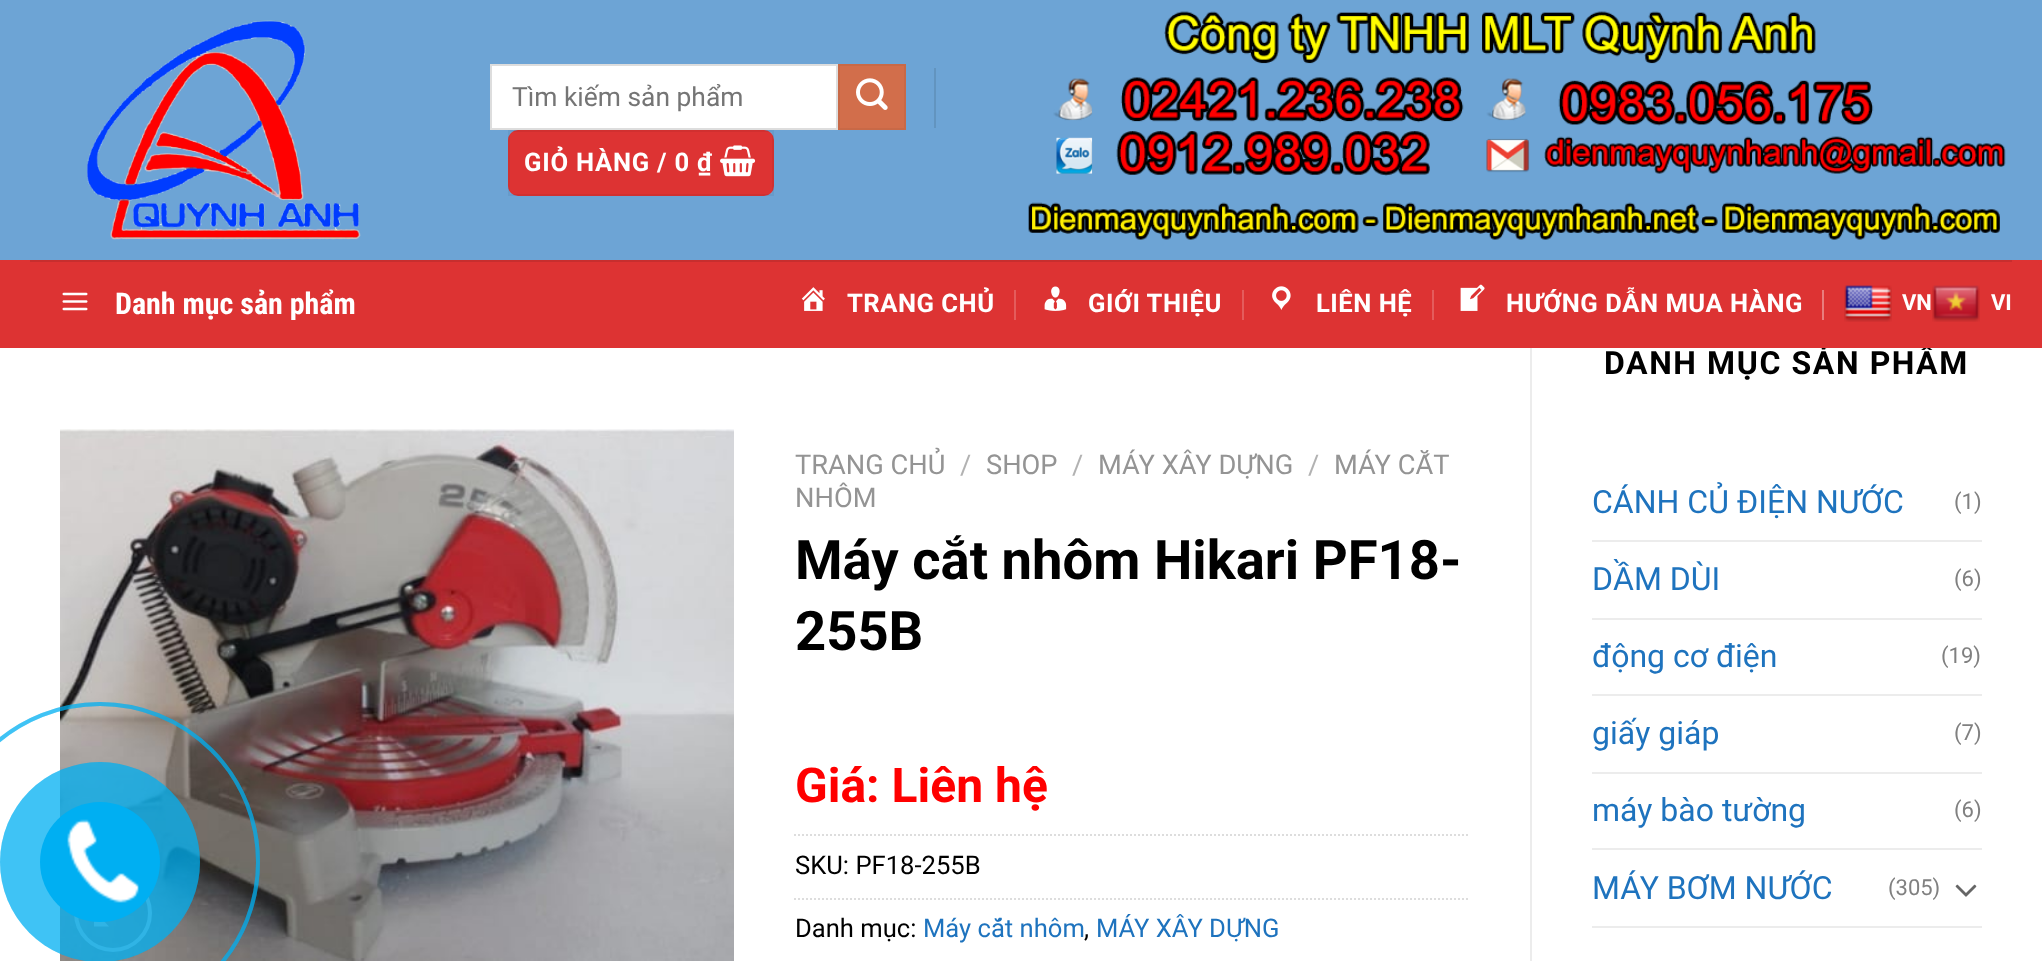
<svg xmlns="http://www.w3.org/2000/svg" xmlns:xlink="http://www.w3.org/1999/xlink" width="2042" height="961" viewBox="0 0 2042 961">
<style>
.cls-1{font:26.4px Roboto;fill:#757575}
.cls-2{font:bold 25.6px Roboto;letter-spacing:0.75px;fill:#ffffff}
.cls-3{font:27.25px Roboto;fill:#949494}
.cls-4{font:27.25px Roboto;fill:#b2b2b2}
.cls-5{font:bold 54.4px Roboto;fill:#000000}
.cls-6{font:bold 48px Roboto;fill:#ff0000}
.cls-7{font:25.6px Roboto;fill:#000000}
.cls-8{font:25.6px Roboto;fill:#1e73be}
.cls-9{font:bold 32px Roboto;letter-spacing:1.6px;fill:#000000}
.cls-10{font:bold 22px Roboto;fill:#ffffff}
.cls-11{font:bold 25.6px Roboto;letter-spacing:0.5px;fill:#ffffff}
.cls-12{font:bold 30px Roboto Condensed;fill:#ffffff}
.cls-13{font:32px Roboto;fill:#1e73be}
.cls-14{font:22px Roboto;fill:#808080}
</style>
<rect width="100%" height="100%" fill="#ffffff"/>
<image xlink:href="image12.png" x="60" y="429" width="674" height="532"/>
<circle fill="none" stroke="#c0c0c0" stroke-width="4" cx="113" cy="913" r="37"/>
<path fill="#c0c0c0" d="M131 889V904L125.5 898.5L118.5 905.5L115 902L122 895L116 889ZM110.5 913.5L103.5 920.5L109 926.5H94V911L100 917L107 910Z"/>
<circle fill="none" stroke="#00aff2" stroke-opacity="0.5" stroke-width="4" cx="100" cy="862" r="158"/>
<circle fill="#00aff2" fill-opacity="0.5" cx="100" cy="862" r="100"/>
<circle fill="none" stroke="#00aff2" stroke-opacity="0.5" stroke-width="4" cx="100" cy="862" r="158"/>
<circle fill="#00aff2" fill-opacity="0.5" cx="100" cy="862" r="100"/>
<circle fill="#00aff2" cx="100" cy="862" r="60"/>
<image xlink:href="image0.png" x="67" y="819" width="72" height="84"/>
<rect fill="#1e73be" fill-opacity="0.65" x="0" y="0" width="2042" height="260"/>
<image xlink:href="image1.png" x="87" y="20" width="274" height="220"/>
<rect fill="#ffffff" stroke="#dddddd" stroke-width="2" x="491" y="65" width="346" height="64"/>
<rect fill="#d26e4b" stroke="#c86947" stroke-width="2" x="839" y="65" width="66" height="64"/>
<image xlink:href="image2.png" x="856" y="78" width="32" height="32"/>
<rect fill="#6294bf" x="934" y="68" width="2" height="60"/>
<rect fill="#dd3333" x="508" y="130" width="266" height="66" rx="10"/>
<rect fill="none" stroke="#000000" stroke-opacity="0.05" stroke-width="2" x="509" y="131" width="264" height="64"/>
<image xlink:href="image3.png" x="720" y="145" width="36" height="32"/>
<image xlink:href="image4.png" x="1028" y="11" width="978" height="229"/>
<rect fill="#ececec" x="1530" y="348" width="2" height="613"/>
<path fill="none" stroke="#dddddd" stroke-width="2" stroke-dasharray="2 2" d="M794 835H1470"/>
<path fill="none" stroke="#dddddd" stroke-width="2" stroke-dasharray="2 2" d="M794 899H1470"/>
<rect fill="#ececec" x="1592" y="540" width="390" height="2"/>
<rect fill="#ececec" x="1592" y="618" width="390" height="2"/>
<rect fill="#ececec" x="1592" y="694" width="390" height="2"/>
<rect fill="#ececec" x="1592" y="772" width="390" height="2"/>
<rect fill="#ececec" x="1592" y="848" width="390" height="2"/>
<image xlink:href="image13.png" x="1955" y="884" width="22" height="13"/>
<rect fill="#ececec" x="1592" y="926" width="390" height="2"/>
<text class="cls-1" x="512" y="106">Tìm kiếm sản phẩm</text>
<text class="cls-2" x="524" y="171">GIỎ HÀNG / 0 ₫</text>
<text class="cls-3" x="795" y="474">TRANG CHỦ</text>
<text class="cls-4" x="960" y="474">/</text>
<text class="cls-3" x="986" y="474">SHOP</text>
<text class="cls-4" x="1072" y="474">/</text>
<text class="cls-3" x="1098" y="474">MÁY XÂY DỰNG</text>
<text class="cls-4" x="1308" y="474">/</text>
<text class="cls-3" x="1334" y="474">MÁY CẮT</text>
<text class="cls-3" x="795" y="507">NHÔM</text>
<text class="cls-5"><tspan x="795" y="579">Máy cắt nhôm Hikari PF18-</tspan><tspan x="795" y="650">255B</tspan></text>
<text class="cls-6" x="795" y="802">Giá: Liên hệ</text>
<text class="cls-7" x="795" y="874">SKU: PF18-255B</text>
<text class="cls-7" x="795" y="937">Danh mục:</text>
<text class="cls-8" x="923" y="937">Máy cắt nhôm</text>
<text class="cls-7" x="1084" y="937">,</text>
<text class="cls-8" x="1096" y="937">MÁY XÂY DỰNG</text>
<text class="cls-9" x="1604" y="374">DANH MỤC SẢN PHẨM</text>
<rect fill="#dd3333" x="0" y="260" width="2042" height="88"/>
<rect fill="#c72e2e" x="30" y="260" width="1982" height="2"/>
<rect fill="#e97d7d" x="1822" y="290" width="2" height="30"/>
<text class="cls-10" x="1991" y="310">VI</text>
<image xlink:href="image11.png" x="1932" y="285" width="48" height="37"/>
<text class="cls-10" x="1902" y="310">VN</text>
<image xlink:href="image10.png" x="1844" y="285" width="48" height="37"/>
<rect fill="#e45c5c" x="1432" y="290" width="2" height="30"/>
<text class="cls-11" x="1506" y="312">HƯỚNG DẪN MUA HÀNG</text>
<image xlink:href="image9.png" x="1460" y="284" width="25" height="27"/>
<rect fill="#e45c5c" x="1242" y="290" width="2" height="30"/>
<text class="cls-11" x="1316" y="312">LIÊN HỆ</text>
<image xlink:href="image8.png" x="1272" y="286" width="19" height="24"/>
<rect fill="#e45c5c" x="1014" y="290" width="2" height="30"/>
<text class="cls-11" x="1088" y="312">GIỚI THIỆU</text>
<image xlink:href="image7.png" x="1044" y="286" width="23" height="25"/>
<text class="cls-11" x="847" y="312">TRANG CHỦ</text>
<image xlink:href="image6.png" x="801" y="287" width="24" height="24"/>
<image xlink:href="image5.png" x="62" y="292" width="26" height="19"/>
<text class="cls-12" x="115" y="314">Danh mục sản phẩm</text>
<text class="cls-13" x="1592" y="513">CÁNH CỦ ĐIỆN NƯỚC</text>
<text class="cls-14" x="1954" y="509">(1)</text>
<text class="cls-13" x="1592" y="590">DẦM DÙI</text>
<text class="cls-14" x="1954" y="586">(6)</text>
<text class="cls-13" x="1592" y="667">động cơ điện</text>
<text class="cls-14" x="1941" y="663">(19)</text>
<text class="cls-13" x="1592" y="744">giấy giáp</text>
<text class="cls-14" x="1954" y="740">(7)</text>
<text class="cls-13" x="1592" y="821">máy bào tường</text>
<text class="cls-14" x="1954" y="817">(6)</text>
<text class="cls-13" x="1592" y="899">MÁY BƠM NƯỚC</text>
<text class="cls-14" x="1888" y="895">(305)</text>
</svg>
